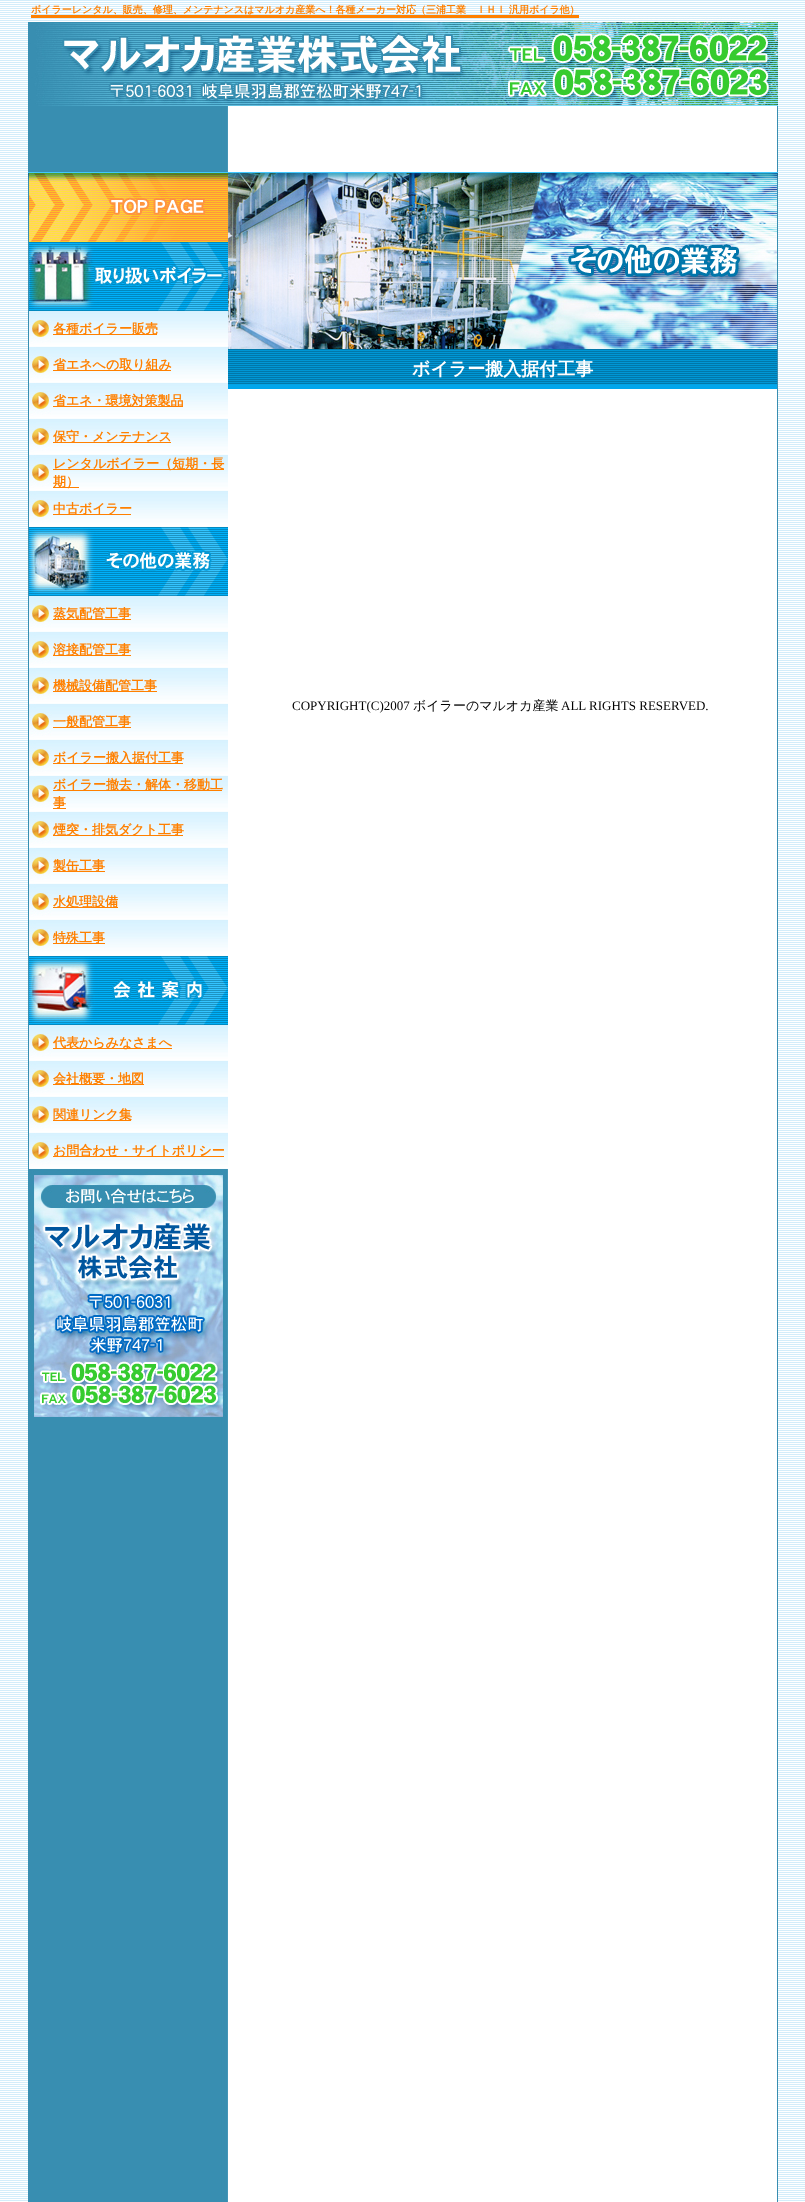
<svg xmlns="http://www.w3.org/2000/svg" xmlns:xlink="http://www.w3.org/1999/xlink" width="805" height="2202" viewBox="0 0 805 2202">
<style>
.cls-1{font:bold 10px WenQuanYi Zen Hei;fill:#ff8000}
.cls-2{font:bold 13px WenQuanYi Zen Hei;fill:#ff8000}
.cls-3{font:bold 18px WenQuanYi Zen Hei;fill:#ffffff}
.cls-4{font:13px Liberation Serif;fill:#000000}
.cls-5{font:500 13px WenQuanYi Zen Hei;fill:#000000}
</style>
<rect width="100%" height="100%" fill="#d3edfa"/>
<image xlink:href="image0.png" x="0" y="1" width="805" height="2201"/>
<image xlink:href="image1.png" x="28" y="106" width="750" height="2096"/>
<image xlink:href="image2.png" x="28" y="0" width="750" height="106"/>
<rect fill="#ff8000" x="31" y="15" width="548" height="3"/>
<image xlink:href="image3.png" x="28" y="172" width="200" height="70"/>
<image xlink:href="image4.png" x="28" y="242" width="200" height="69"/>
<image xlink:href="image5.png" x="29" y="311" width="199" height="216"/>
<rect fill="#ff8000" x="53" y="334" width="104" height="1"/>
<rect fill="#ff8000" x="53" y="370" width="118" height="1"/>
<rect fill="#ff8000" x="53" y="406" width="130" height="1"/>
<rect fill="#ff8000" x="53" y="442" width="118" height="1"/>
<rect fill="#ff8000" x="53" y="469" width="171" height="1"/>
<rect fill="#ff8000" x="53" y="487" width="26" height="1"/>
<rect fill="#ff8000" x="53" y="514" width="78" height="1"/>
<image xlink:href="image6.png" x="28" y="527" width="200" height="69"/>
<image xlink:href="image5.png" x="29" y="596" width="199" height="216"/>
<rect fill="#ff8000" x="53" y="619" width="78" height="1"/>
<rect fill="#ff8000" x="53" y="655" width="78" height="1"/>
<rect fill="#ff8000" x="53" y="691" width="104" height="1"/>
<rect fill="#ff8000" x="53" y="727" width="78" height="1"/>
<rect fill="#ff8000" x="53" y="763" width="130" height="1"/>
<rect fill="#ff8000" x="53" y="790" width="169" height="1"/>
<rect fill="#ff8000" x="53" y="808" width="13" height="1"/>
<image xlink:href="image7.png" x="28" y="812" width="200" height="144"/>
<rect fill="#ff8000" x="53" y="835" width="130" height="1"/>
<rect fill="#ff8000" x="53" y="871" width="52" height="1"/>
<rect fill="#ff8000" x="53" y="907" width="65" height="1"/>
<rect fill="#ff8000" x="53" y="943" width="52" height="1"/>
<image xlink:href="image8.png" x="28" y="956" width="200" height="69"/>
<image xlink:href="image9.png" x="29" y="1025" width="199" height="144"/>
<rect fill="#ff8000" x="53" y="1048" width="119" height="1"/>
<rect fill="#ff8000" x="53" y="1084" width="91" height="1"/>
<rect fill="#ff8000" x="53" y="1120" width="78" height="1"/>
<rect fill="#ff8000" x="53" y="1156" width="171" height="1"/>
<image xlink:href="image10.png" x="28" y="1169" width="200" height="254"/>
<image xlink:href="image11.png" x="228" y="172" width="550" height="177"/>
<image xlink:href="image12.png" x="228" y="349" width="550" height="40"/>
<text class="cls-1" x="31" y="13">ボイラーレンタル、販売、修理、メンテナンスはマルオカ産業へ！各種メーカー対応（三浦工業　ＩＨＩ 汎用ボイラ他）</text>
<text class="cls-2" x="53" y="333">各種ボイラー販売</text>
<text class="cls-2" x="53" y="369">省エネへの取り組み</text>
<text class="cls-2" x="53" y="405">省エネ・環境対策製品</text>
<text class="cls-2" x="53" y="441">保守・メンテナンス</text>
<text class="cls-2"><tspan x="53" y="468">レンタルボイラー（短期・長</tspan><tspan x="53" y="486">期）</tspan></text>
<text class="cls-2" x="53" y="513">中古ボイラー</text>
<text class="cls-2" x="53" y="618">蒸気配管工事</text>
<text class="cls-2" x="53" y="654">溶接配管工事</text>
<text class="cls-2" x="53" y="690">機械設備配管工事</text>
<text class="cls-2" x="53" y="726">一般配管工事</text>
<text class="cls-2" x="53" y="762">ボイラー搬入据付工事</text>
<text class="cls-2"><tspan x="53" y="789">ボイラー撤去・解体・移動工</tspan><tspan x="53" y="807">事</tspan></text>
<text class="cls-2" x="53" y="834">煙突・排気ダクト工事</text>
<text class="cls-2" x="53" y="870">製缶工事</text>
<text class="cls-2" x="53" y="906">水処理設備</text>
<text class="cls-2" x="53" y="942">特殊工事</text>
<text class="cls-2" x="53" y="1047">代表からみなさまへ</text>
<text class="cls-2" x="53" y="1083">会社概要・地図</text>
<text class="cls-2" x="53" y="1119">関連リンク集</text>
<text class="cls-2" x="53" y="1155">お問合わせ・サイトポリシー</text>
<text class="cls-3" x="412" y="375">ボイラー搬入据付工事</text>
<text class="cls-4" x="292" y="710">COPYRIGHT(C)2007</text>
<text class="cls-5" x="413" y="710">ボイラーのマルオカ産業</text>
<text class="cls-4" x="561" y="710">ALL RIGHTS RESERVED.</text>
</svg>
